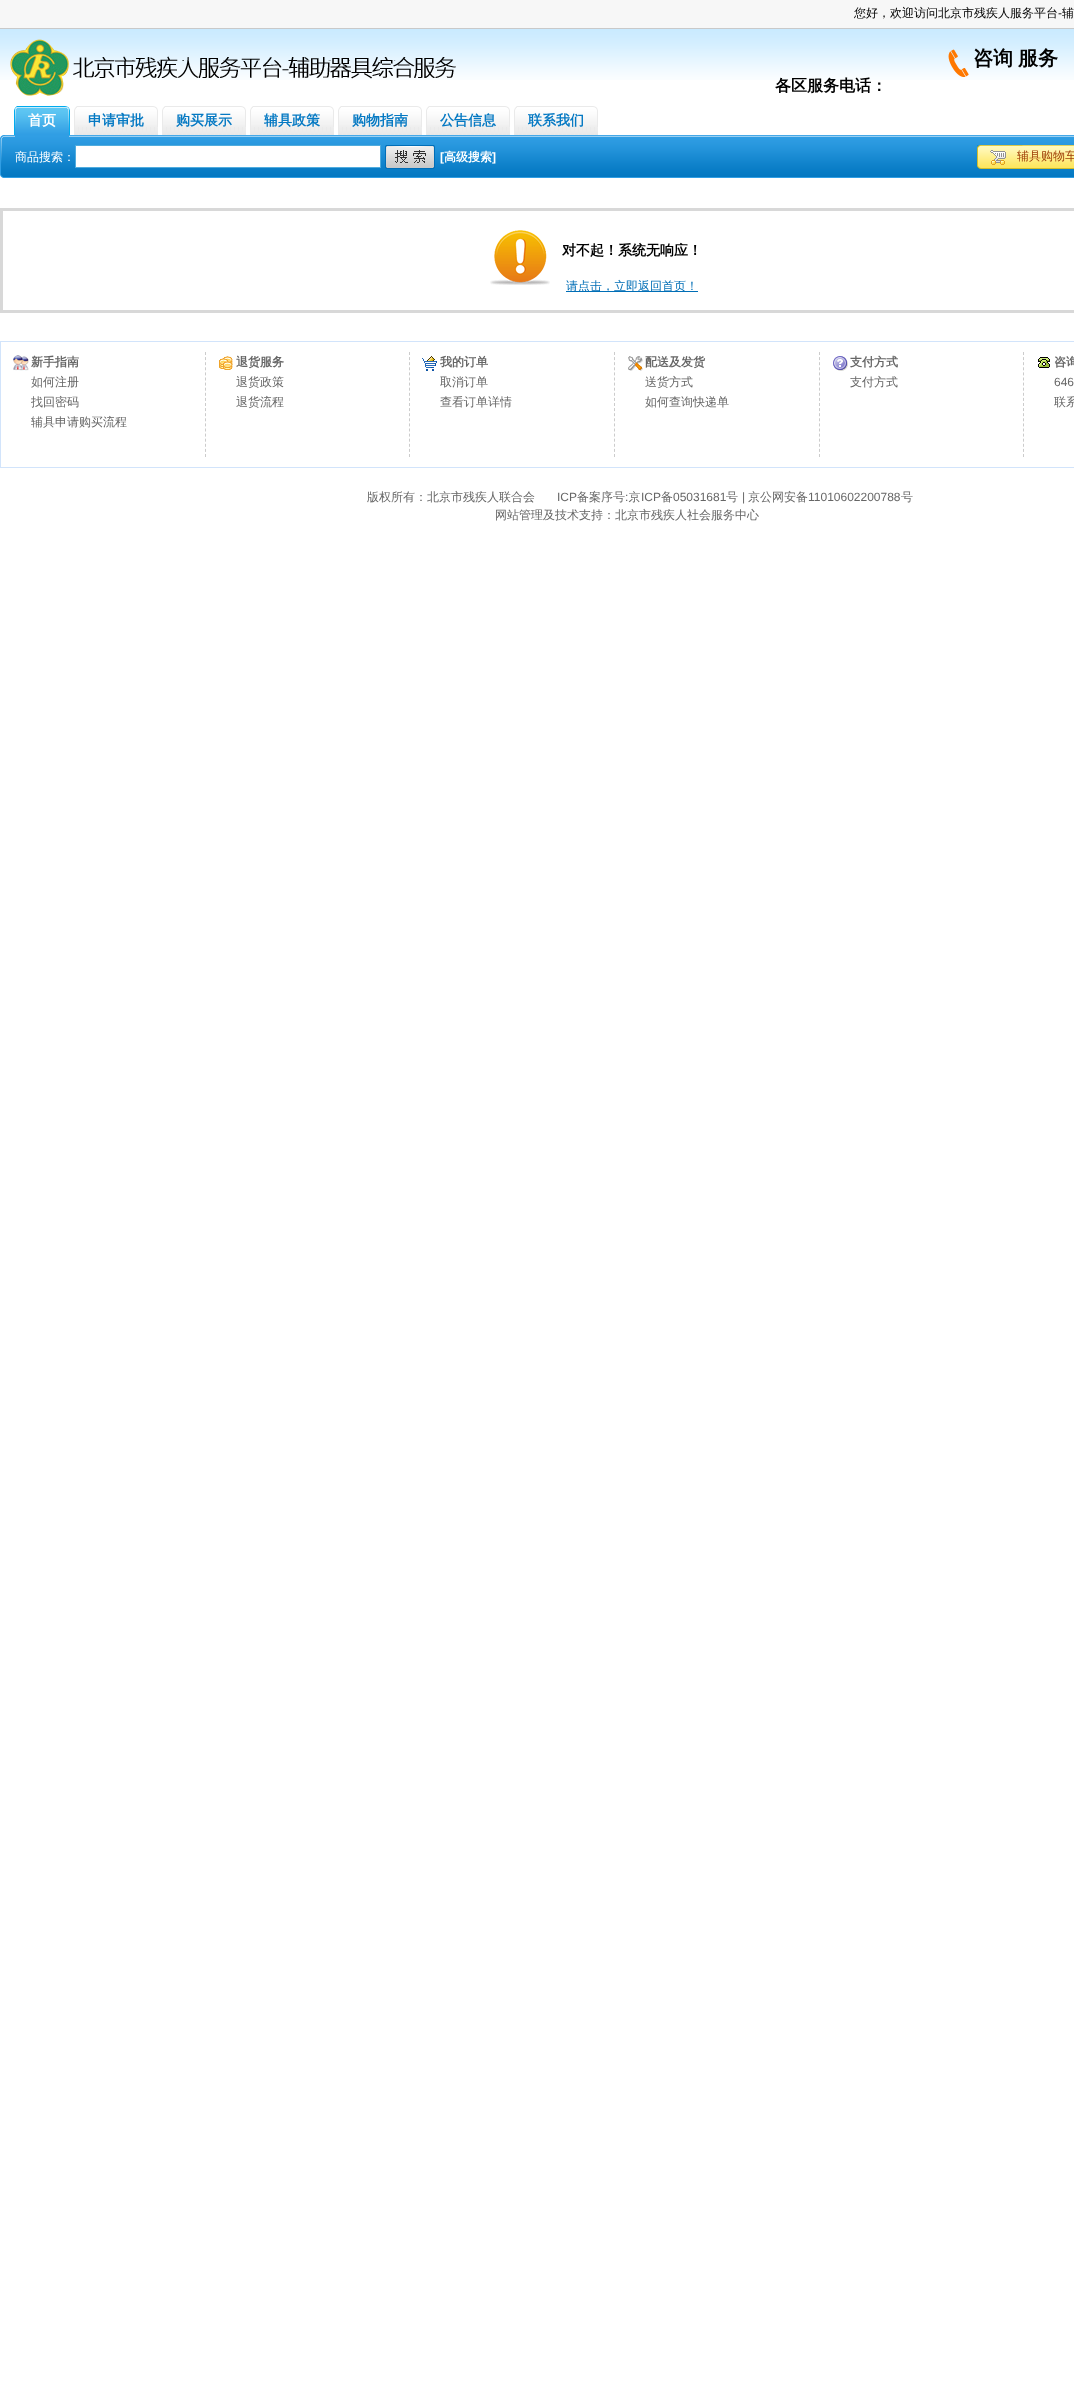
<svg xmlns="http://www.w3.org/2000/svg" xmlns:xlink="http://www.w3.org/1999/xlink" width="1074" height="2394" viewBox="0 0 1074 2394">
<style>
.cls-1{font:500 12px WenQuanYi Zen Hei;fill:#000000}
.cls-2{font:12px Liberation Sans;fill:#000000}
.cls-3{font:bold 20px WenQuanYi Zen Hei;fill:#000000}
.cls-4{font:bold 16px WenQuanYi Zen Hei;fill:#000000}
.cls-5{font:bold 14px WenQuanYi Zen Hei;fill:#ffffff}
.cls-6{font:bold 14px WenQuanYi Zen Hei;fill:#0579c3}
.cls-7{font:500 12px WenQuanYi Zen Hei;fill:#ffffff}
.cls-8{font:bold 12px Liberation Sans;fill:#ffffff}
.cls-9{font:bold 12px WenQuanYi Zen Hei;fill:#ffffff}
.cls-10{font:500 12px WenQuanYi Zen Hei;fill:#a0410a}
.cls-11{font:bold 14px WenQuanYi Zen Hei;fill:#000000}
.cls-12{font:500 12px WenQuanYi Zen Hei;fill:#006eb6}
.cls-13{font:bold 12px WenQuanYi Zen Hei;fill:#666666}
.cls-14{font:500 12px WenQuanYi Zen Hei;fill:#666666}
.cls-15{font:12px Liberation Sans;fill:#666666}
</style>
<rect width="100%" height="100%" fill="#ffffff"/>
<rect fill="#f7f7f7" x="0" y="0" width="1074" height="28"/>
<rect fill="#c9c9c9" x="0" y="28" width="1074" height="1"/>
<image xlink:href="image0.png" x="0" y="29" width="1074" height="51"/>
<image xlink:href="image1.png" x="10" y="39" width="446" height="57"/>
<image xlink:href="image2.png" x="948" y="49" width="21" height="28"/>
<image xlink:href="image8.png" x="5" y="135" width="1069" height="43"/>
<image xlink:href="image3.png" x="14" y="106" width="4" height="31"/>
<image xlink:href="image4.png" x="18" y="106" width="52" height="31"/>
<image xlink:href="image5.png" x="74" y="106" width="84" height="29"/>
<image xlink:href="image6.png" x="78" y="106" width="80" height="21"/>
<image xlink:href="image5.png" x="162" y="106" width="84" height="29"/>
<image xlink:href="image6.png" x="166" y="106" width="80" height="21"/>
<image xlink:href="image5.png" x="250" y="106" width="84" height="29"/>
<image xlink:href="image6.png" x="254" y="106" width="80" height="21"/>
<image xlink:href="image5.png" x="338" y="106" width="84" height="29"/>
<image xlink:href="image6.png" x="342" y="106" width="80" height="21"/>
<image xlink:href="image5.png" x="426" y="106" width="84" height="29"/>
<image xlink:href="image6.png" x="430" y="106" width="80" height="21"/>
<image xlink:href="image5.png" x="514" y="106" width="84" height="29"/>
<image xlink:href="image6.png" x="518" y="106" width="80" height="21"/>
<image xlink:href="image7.png" x="0" y="135" width="5" height="43"/>
<rect fill="#ffffff" stroke="#50acde" x="75.5" y="145.5" width="305" height="22"/>
<image xlink:href="image9.png" x="385" y="145" width="50" height="24"/>
<image xlink:href="image10.png" x="977" y="145" width="97" height="24"/>
<rect fill="none" stroke="#d8d8d8" stroke-width="3" x="1.5" y="209.5" width="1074" height="102"/>
<image xlink:href="image11.png" x="490" y="230" width="60" height="55"/>
<rect fill="#006eb6" x="566" y="291" width="132" height="1"/>
<rect fill="none" stroke="#d2e4fb" x="0.5" y="341.5" width="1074" height="126"/>
<image xlink:href="image12.png" x="13" y="355" width="16" height="16"/>
<path fill="none" stroke="#cccccc" stroke-dasharray="3 2.1" d="M205.5 352V457"/>
<image xlink:href="image13.png" x="219" y="356" width="14" height="14"/>
<path fill="none" stroke="#cccccc" stroke-dasharray="3 2.1" d="M409.5 352V457"/>
<image xlink:href="image14.png" x="422" y="356" width="15" height="15"/>
<path fill="none" stroke="#cccccc" stroke-dasharray="3 2.1" d="M614.5 352V457"/>
<image xlink:href="image15.png" x="628" y="356" width="15" height="15"/>
<path fill="none" stroke="#cccccc" stroke-dasharray="3 2.1" d="M819.5 352V457"/>
<image xlink:href="image16.png" x="833" y="356" width="15" height="15"/>
<path fill="none" stroke="#cccccc" stroke-dasharray="3 2.1" d="M1023.5 352V457"/>
<image xlink:href="image17.png" x="1038" y="357" width="12" height="11"/>
<text class="cls-1" x="854" y="17">您好，欢迎访问北京市残疾人服务平台</text>
<text class="cls-2" x="1058" y="17">-</text>
<text class="cls-1" x="1062" y="17">辅</text>
<text class="cls-3" x="973" y="65">咨询</text>
<text class="cls-3" x="1018" y="65">服务</text>
<text class="cls-4" x="775" y="91">各区服务电话：</text>
<text class="cls-5" x="28" y="125">首页</text>
<text class="cls-6" x="88" y="125">申请审批</text>
<text class="cls-6" x="176" y="125">购买展示</text>
<text class="cls-6" x="264" y="125">辅具政策</text>
<text class="cls-6" x="352" y="125">购物指南</text>
<text class="cls-6" x="440" y="125">公告信息</text>
<text class="cls-6" x="528" y="125">联系我们</text>
<text class="cls-7" x="15" y="161">商品搜索：</text>
<text class="cls-8" x="440" y="161">[</text>
<text class="cls-9" x="444" y="161">高级搜索</text>
<text class="cls-8" x="492" y="161">]</text>
<text class="cls-10" x="1017" y="160">辅具购物车</text>
<text class="cls-11" x="562" y="255">对不起！系统无响应！</text>
<text class="cls-12" x="566" y="290">请点击，立即返回首页！</text>
<text class="cls-13" x="31" y="366">新手指南</text>
<text class="cls-14"><tspan x="31" y="386">如何注册</tspan><tspan x="31" y="406">找回密码</tspan><tspan x="31" y="426">辅具申请购买流程</tspan></text>
<text class="cls-13" x="236" y="366">退货服务</text>
<text class="cls-14"><tspan x="236" y="386">退货政策</tspan><tspan x="236" y="406">退货流程</tspan></text>
<text class="cls-13" x="440" y="366">我的订单</text>
<text class="cls-14"><tspan x="440" y="386">取消订单</tspan><tspan x="440" y="406">查看订单详情</tspan></text>
<text class="cls-13" x="645" y="366">配送及发货</text>
<text class="cls-14"><tspan x="645" y="386">送货方式</tspan><tspan x="645" y="406">如何查询快递单</tspan></text>
<text class="cls-13" x="850" y="366">支付方式</text>
<text class="cls-14" x="850" y="386">支付方式</text>
<text class="cls-13" x="1054" y="366">咨询</text>
<text class="cls-15" x="1054" y="386">646</text>
<text class="cls-14" x="1054" y="406">联系</text>
<text class="cls-14" x="367" y="501">版权所有：北京市残疾人联合会</text>
<text class="cls-15" x="557" y="501">ICP</text>
<text class="cls-14" x="577" y="501">备案序号 京</text>
<text class="cls-15" x="641" y="501">ICP</text>
<text class="cls-14" x="661" y="501">备</text>
<text class="cls-15" x="673" y="501">05031681</text>
<text class="cls-14" x="726" y="501">号</text>
<text class="cls-15" x="742" y="501">|</text>
<text class="cls-14" x="748" y="501">京公网安备</text>
<text class="cls-15" x="808" y="501">11010602200788</text>
<text class="cls-14" x="901" y="501">号</text>
<text class="cls-15" x="625" y="501">:</text>
<text class="cls-14" x="495" y="519">网站管理及技术支持：北京市残疾人社会服务中心</text>
</svg>
